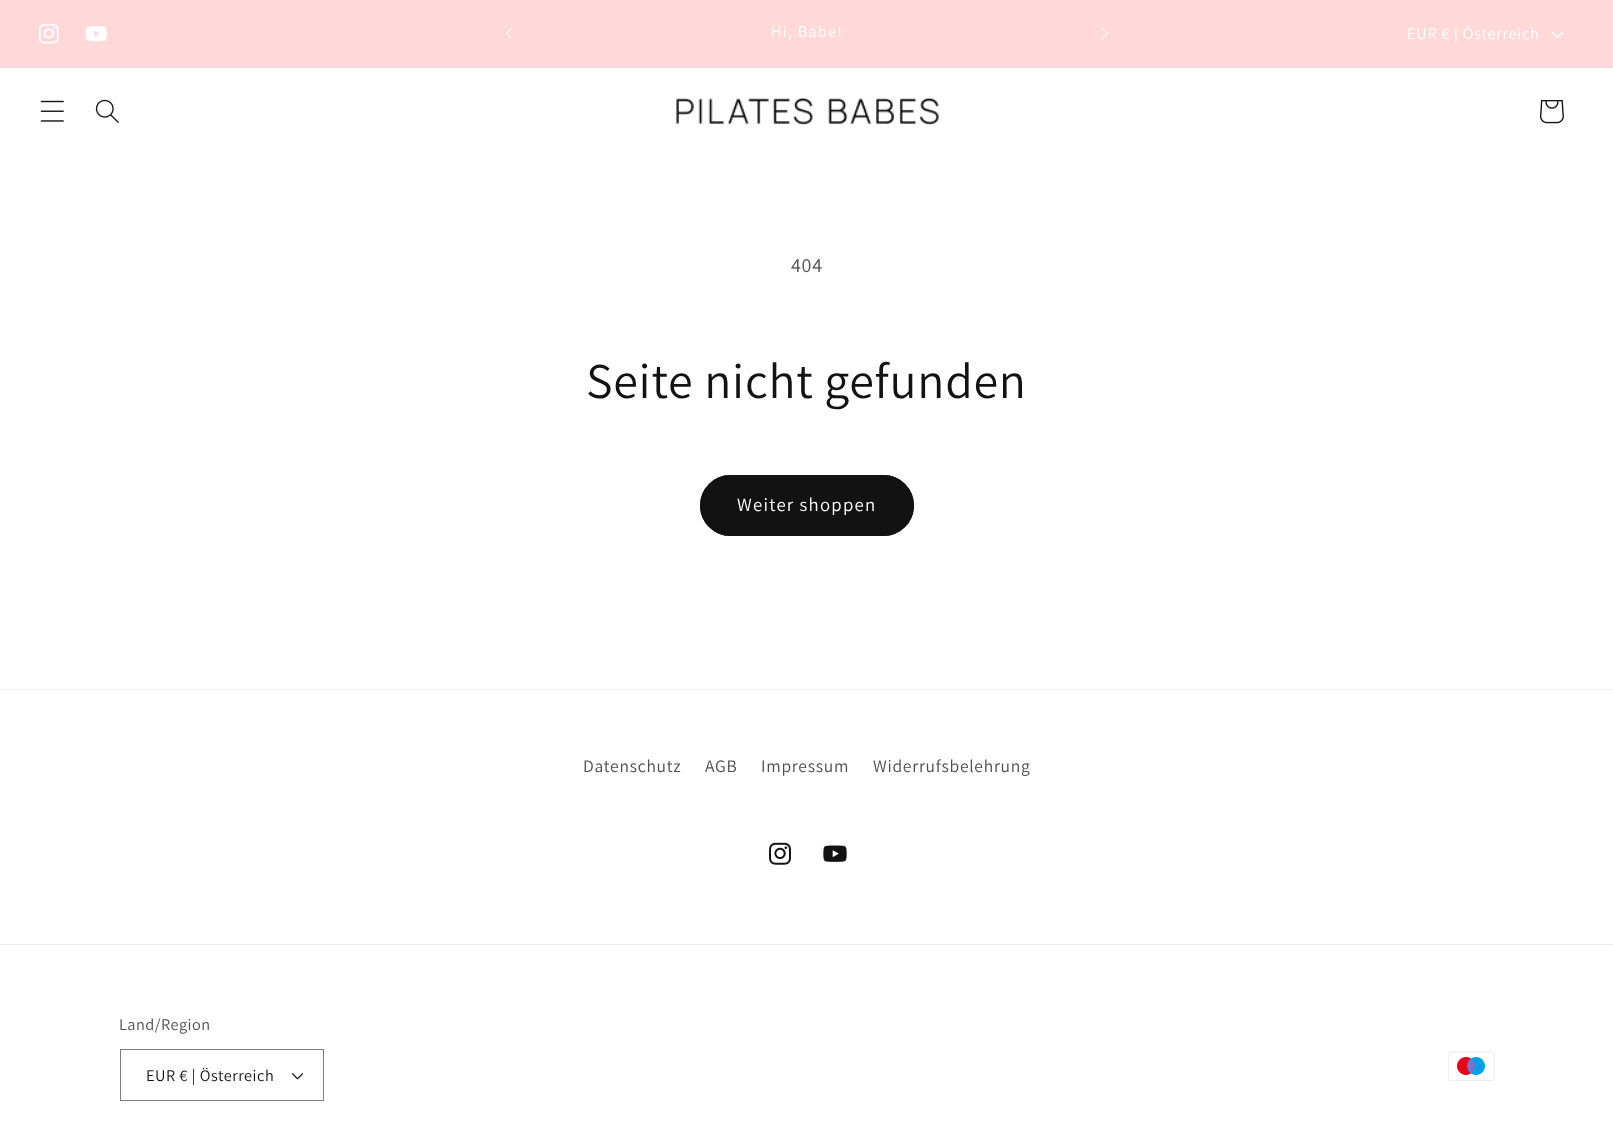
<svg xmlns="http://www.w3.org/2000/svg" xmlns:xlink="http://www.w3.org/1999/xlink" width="1613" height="1137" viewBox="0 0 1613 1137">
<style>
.cls-1{font:16.25px Assistant;letter-spacing:1.25px;fill:#ffffff}
.cls-2{font:16.25px Assistant;letter-spacing:0.75px;fill:#ffffff}
.cls-3{font:20px Assistant;letter-spacing:0.75px;fill:#4d4d4d}
.cls-4{font:50px Assistant;letter-spacing:0.75px;fill:#121212}
.cls-5{font:18.75px Assistant;letter-spacing:1.25px;fill:#ffffff}
.cls-6{font:17.5px Assistant;letter-spacing:0.75px;fill:#4d4d4d}
.cls-7{font:16.25px Assistant;letter-spacing:0.5px;fill:#4d4d4d}
.cls-8{font:16.25px Assistant;letter-spacing:0.5px;fill:#121212}
</style>
<rect width="100%" height="100%" fill="#ffffff"/>
<rect fill="#ffd9d9" x="0" y="0" width="1613" height="68"/>
<image xlink:href="image0.png" x="38" y="23" width="21" height="21"/>
<image xlink:href="image1.png" x="85" y="26" width="22" height="15"/>
<image xlink:href="image2.png" x="505" y="28" width="7" height="11"/>
<image xlink:href="image3.png" x="1102" y="28" width="6" height="11"/>
<image xlink:href="image4.png" x="1552" y="32" width="11" height="6"/>
<image xlink:href="image5.png" x="40" y="100" width="24" height="22"/>
<image xlink:href="image6.png" x="95" y="99" width="24" height="24"/>
<image xlink:href="image7.png" x="676" y="97" width="263" height="28"/>
<image xlink:href="image8.png" x="1540" y="100" width="24" height="24"/>
<rect fill="#121212" x="700" y="475" width="214" height="61" rx="30.5"/>
<rect fill="none" stroke="#121212" stroke-width="3" x="701.5" y="476.5" width="211" height="58" rx="29"/>
<rect fill="#ececec" x="0" y="689" width="1613" height="1"/>
<image xlink:href="image9.png" x="769" y="842" width="22" height="23"/>
<image xlink:href="image10.png" x="823" y="845" width="24" height="17"/>
<rect fill="#ececec" x="0" y="944" width="1613" height="1"/>
<image xlink:href="image11.png" x="291" y="1073" width="13" height="7"/>
<rect fill="none" stroke="#7d7d7d" x="120.5" y="1049.5" width="203" height="51"/>
<image xlink:href="image12.png" x="1448" y="1051" width="47" height="30"/>
<text class="cls-1" x="771" y="37">Hi, Babe!</text>
<text class="cls-2" x="1407" y="39">EUR € | Österreich</text>
<text class="cls-3" x="791" y="272">404</text>
<text class="cls-4" x="586" y="398">Seite nicht gefunden</text>
<text class="cls-5" x="737" y="511">Weiter shoppen</text>
<text class="cls-6" x="583" y="772">Datenschutz</text>
<text class="cls-6" x="705" y="772">AGB</text>
<text class="cls-6" x="761" y="772">Impressum</text>
<text class="cls-6" x="873" y="772">Widerrufsbelehrung</text>
<text class="cls-7" x="119" y="1030">Land/Region</text>
<text class="cls-8" x="146" y="1081">EUR € | Österreich</text>
</svg>
